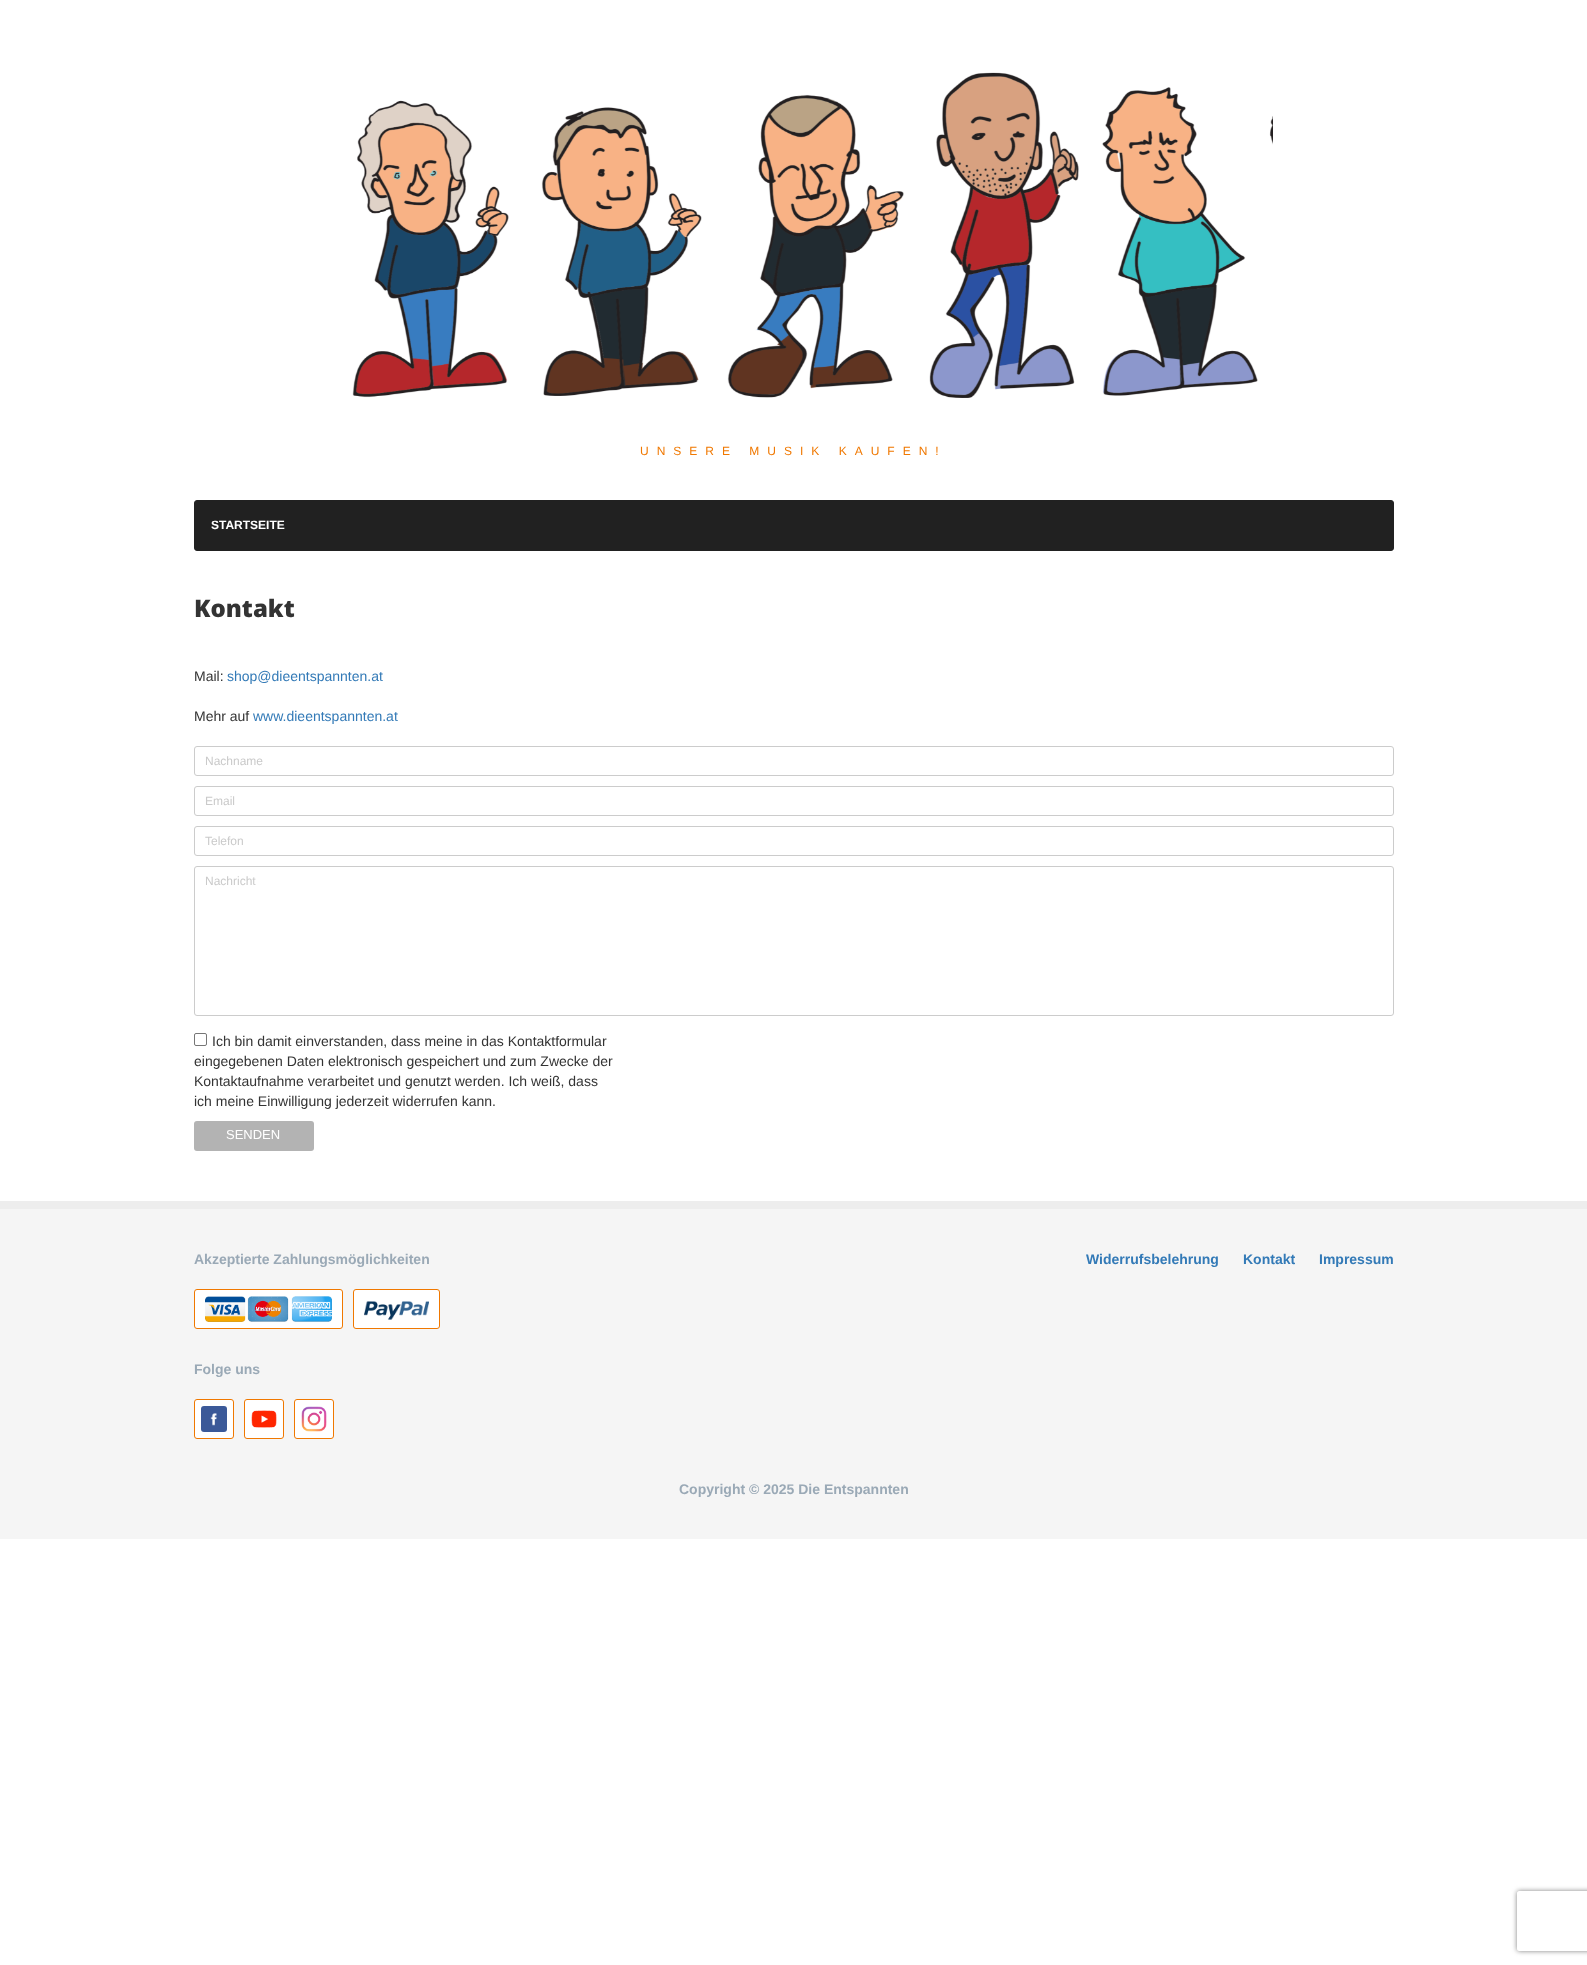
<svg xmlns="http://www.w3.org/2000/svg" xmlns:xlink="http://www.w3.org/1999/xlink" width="1587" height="1965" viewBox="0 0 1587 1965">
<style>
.cls-1{font:12px Liberation Sans;letter-spacing:8px;fill:#f07800}
.cls-2{font:bold 12px Liberation Sans;fill:#ffffff}
.cls-3{font:800 24px Open Sans;fill:#333333}
.cls-4{font:14px Liberation Sans;fill:#333333}
.cls-5{font:14px Liberation Sans;fill:#337ab7}
.cls-6{font:12px Liberation Sans;fill:#cacaca}
.cls-7{font:13px Liberation Sans;fill:#ffffff}
.cls-8{font:bold 14px Liberation Sans;fill:#9aa9b6}
.cls-9{font:bold 14px Liberation Sans;fill:#337ab7}
</style>
<defs>
<clipPath id="clip1"><path d="M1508 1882H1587V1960H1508ZM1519 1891H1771C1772 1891 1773 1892 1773 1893V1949C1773 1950 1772 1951 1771 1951H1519C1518 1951 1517 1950 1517 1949V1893C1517 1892 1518 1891 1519 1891Z" clip-rule="evenodd"/></clipPath>
</defs>
<rect width="100%" height="100%" fill="#ffffff"/>
<image xlink:href="image0.png" x="352" y="72" width="921" height="326"/>
<rect fill="#212121" stroke="#212121" x="194.5" y="500.5" width="1199" height="50" rx="2.5"/>
<rect fill="none" stroke="#cccccc" x="194.5" y="746.5" width="1199" height="29" rx="2.5"/>
<rect fill="none" stroke="#cccccc" x="194.5" y="786.5" width="1199" height="29" rx="2.5"/>
<rect fill="none" stroke="#cccccc" x="194.5" y="826.5" width="1199" height="29" rx="2.5"/>
<rect fill="none" stroke="#cccccc" x="194.5" y="866.5" width="1199" height="149" rx="2.5"/>
<rect fill="none" stroke="#767676" x="194.5" y="1033.5" width="12" height="12" rx="1.5"/>
<rect fill="#b3b3b3" x="194" y="1121" width="120" height="30" rx="3"/>
<rect fill="#f5f5f5" x="0" y="1209" width="1587" height="330"/>
<rect fill="#ededed" x="0" y="1201" width="1587" height="8"/>
<rect fill="#ffffff" stroke="#f07800" x="194.5" y="1289.5" width="148" height="39" rx="2.5"/>
<image xlink:href="image1.png" x="205" y="1296" width="127" height="26"/>
<rect fill="#ffffff" stroke="#f07800" x="353.5" y="1289.5" width="86" height="39" rx="2.5"/>
<image xlink:href="image2.png" x="364" y="1301" width="65" height="19"/>
<rect fill="#ffffff" stroke="#f07800" x="194.5" y="1399.5" width="39" height="39" rx="2.5"/>
<image xlink:href="image3.png" x="201" y="1406" width="26" height="26"/>
<rect fill="#ffffff" stroke="#f07800" x="244.5" y="1399.5" width="39" height="39" rx="2.5"/>
<image xlink:href="image4.png" x="251" y="1410" width="26" height="18"/>
<rect fill="#ffffff" stroke="#f07800" x="294.5" y="1399.5" width="39" height="39" rx="2.5"/>
<image xlink:href="image5.png" x="301" y="1406" width="26" height="26"/>
<g clip-path="url(#clip1)">
<rect fill="#808080" filter="blur(2.5px)" x="1517" y="1891" width="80" height="60" rx="2"/>
</g>
<text class="cls-1" x="640" y="455">UNSERE MUSIK KAUFEN!</text>
<text class="cls-2" x="211" y="529">STARTSEITE</text>
<text class="cls-3" x="194" y="617">Kontakt</text>
<text class="cls-4" x="194" y="681">Mail:</text>
<text class="cls-5" x="227" y="681">shop@dieentspannten.at</text>
<text class="cls-4" x="194" y="721">Mehr auf</text>
<text class="cls-5" x="253" y="721">www.dieentspannten.at</text>
<text class="cls-6" x="205" y="765">Nachname</text>
<text class="cls-6" x="205" y="805">Email</text>
<text class="cls-6" x="205" y="845">Telefon</text>
<text class="cls-6" x="205" y="885">Nachricht</text>
<text class="cls-4" x="212" y="1046">Ich bin damit einverstanden, dass meine in das Kontaktformular</text>
<text class="cls-4"><tspan x="194" y="1066">eingegebenen Daten elektronisch gespeichert und zum Zwecke der</tspan><tspan x="194" y="1086">Kontaktaufnahme verarbeitet und genutzt werden. Ich weiß, dass</tspan><tspan x="194" y="1106">ich meine Einwilligung jederzeit widerrufen kann.</tspan></text>
<text class="cls-7" x="226" y="1139">SENDEN</text>
<text class="cls-8" x="194" y="1264">Akzeptierte Zahlungsmöglichkeiten</text>
<text class="cls-8" x="194" y="1374">Folge uns</text>
<text class="cls-9" x="1086" y="1264">Widerrufsbelehrung</text>
<text class="cls-9" x="1243" y="1264">Kontakt</text>
<text class="cls-9" x="1319" y="1264">Impressum</text>
<text class="cls-8" x="679" y="1494">Copyright © 2025 Die Entspannten</text>
</svg>
